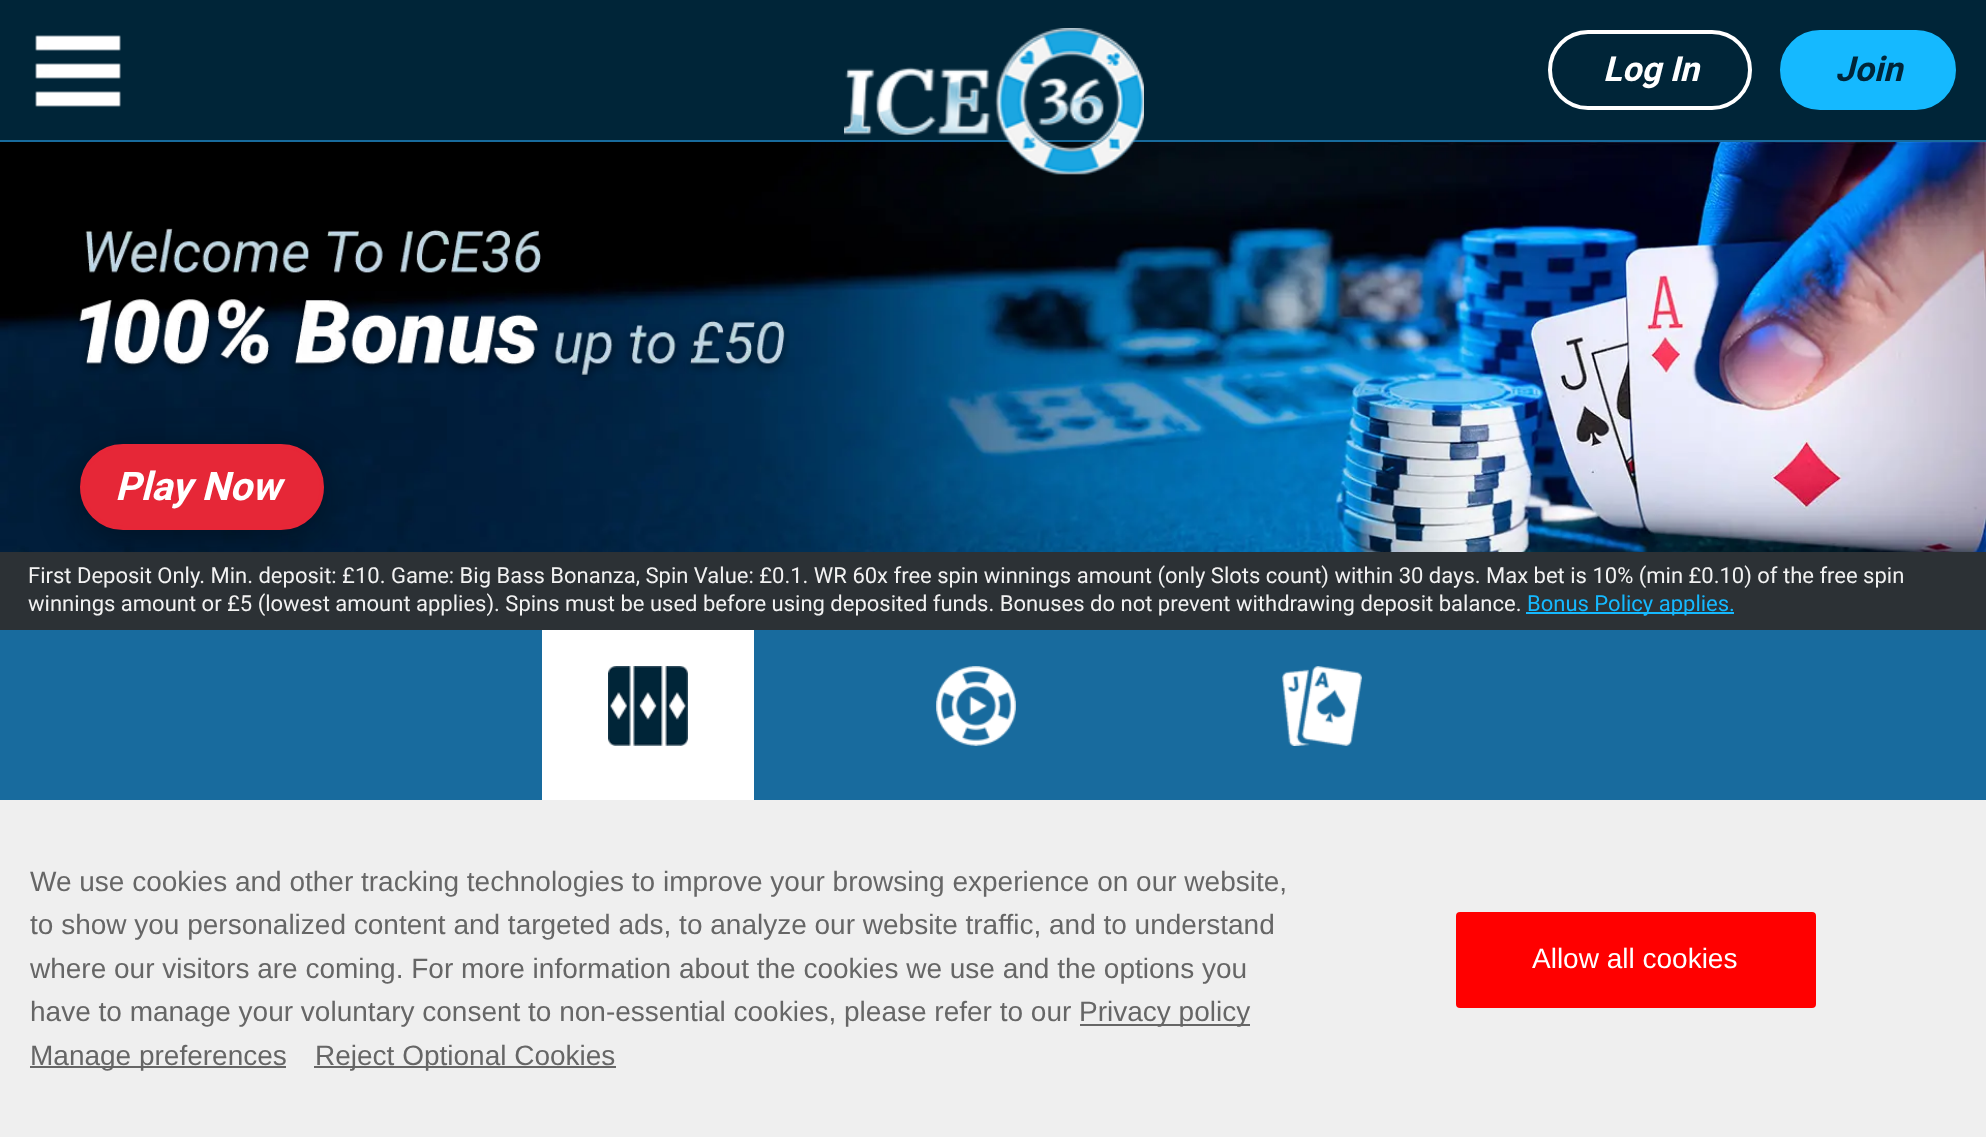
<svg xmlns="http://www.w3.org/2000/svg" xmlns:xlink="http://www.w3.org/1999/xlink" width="1986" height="1137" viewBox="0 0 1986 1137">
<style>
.cls-1{font:italic bold 34.5px Roboto;fill:#ffffff}
.cls-2{font:italic bold 34.5px Roboto;fill:#002538}
.cls-3{font:italic bold 39.5px Roboto;fill:#ffffff}
.cls-4{font:22px Roboto;fill:#f2f2f2}
.cls-5{font:22px Roboto;fill:#15b9ff}
.cls-6{font:28px Liberation Sans;fill:#666666}
.cls-7{font:28px Liberation Sans;fill:#ffffff}
</style>
<rect width="100%" height="100%" fill="#002538"/>
<image xlink:href="image0.png" x="35" y="35" width="86" height="72"/>
<rect fill="#186b9d" x="0" y="140" width="1986" height="2"/>
<image xlink:href="image2.png" x="0" y="142" width="1986" height="410"/>
<image xlink:href="image1.png" x="844" y="28" width="300" height="147"/>
<rect fill="none" stroke="#ffffff" stroke-width="4" x="1550" y="32" width="200" height="76" rx="38"/>
<rect fill="#15b9ff" stroke="#15b9ff" stroke-width="4" x="1782" y="32" width="172" height="76" rx="38"/>
<image xlink:href="image3.png" x="78" y="228" width="712" height="153"/>
<rect fill="#000000" fill-opacity="0.4" filter="blur(20px)" x="80" y="454" width="244" height="86" rx="43"/>
<rect fill="#e62737" stroke="#e72637" stroke-width="4" x="82" y="446" width="240" height="82" rx="41"/>
<rect fill="#2c3135" x="0" y="552" width="1986" height="78"/>
<rect fill="#15b9ff" x="1526" y="612" width="208" height="2"/>
<rect fill="#186b9e" x="0" y="630" width="1986" height="170"/>
<rect fill="#ffffff" x="542" y="630" width="212" height="170"/>
<image xlink:href="image4.png" x="608" y="666" width="80" height="80"/>
<image xlink:href="image5.png" x="936" y="666" width="80" height="80"/>
<image xlink:href="image6.png" x="1282" y="666" width="80" height="80"/>
<rect fill="#efefef" x="0" y="800" width="1986" height="337"/>
<rect fill="#666666" x="1080" y="1024" width="170" height="2"/>
<rect fill="#666666" x="30" y="1066" width="256" height="2"/>
<rect fill="#666666" x="314" y="1066" width="302" height="2"/>
<rect fill="#ff0000" x="1456" y="912" width="360" height="96" rx="4"/>
<text class="cls-1" x="1603" y="81">Log In</text>
<text class="cls-2" x="1835" y="81">Join</text>
<text class="cls-3" x="115" y="500">Play Now</text>
<text class="cls-4"><tspan x="28" y="583">First Deposit Only. Min. deposit: £10. Game: Big Bass Bonanza, Spin Value: £0.1. WR 60x free spin winnings amount (only Slots count) within 30 days. Max bet is 10% (min £0.10) of the free spin</tspan><tspan x="28" y="611">winnings amount or £5 (lowest amount applies). Spins must be used before using deposited funds. Bonuses do not prevent withdrawing deposit balance.</tspan></text>
<text class="cls-5" x="1527" y="611">Bonus Policy applies.</text>
<text class="cls-6"><tspan x="30" y="891">We use cookies and other tracking technologies to improve your browsing experience on our website,</tspan><tspan x="30" y="934">to show you personalized content and targeted ads, to analyze our website traffic, and to understand</tspan><tspan x="30" y="978">where our visitors are coming. For more information about the cookies we use and the options you</tspan><tspan x="30" y="1021">have to manage your voluntary consent to non-essential cookies, please refer to our</tspan></text>
<text class="cls-6" x="1079" y="1021">Privacy policy</text>
<text class="cls-6" x="30" y="1065">Manage preferences</text>
<text class="cls-6" x="315" y="1065">Reject Optional Cookies</text>
<text class="cls-7" x="1532" y="968">Allow all cookies</text>
</svg>
